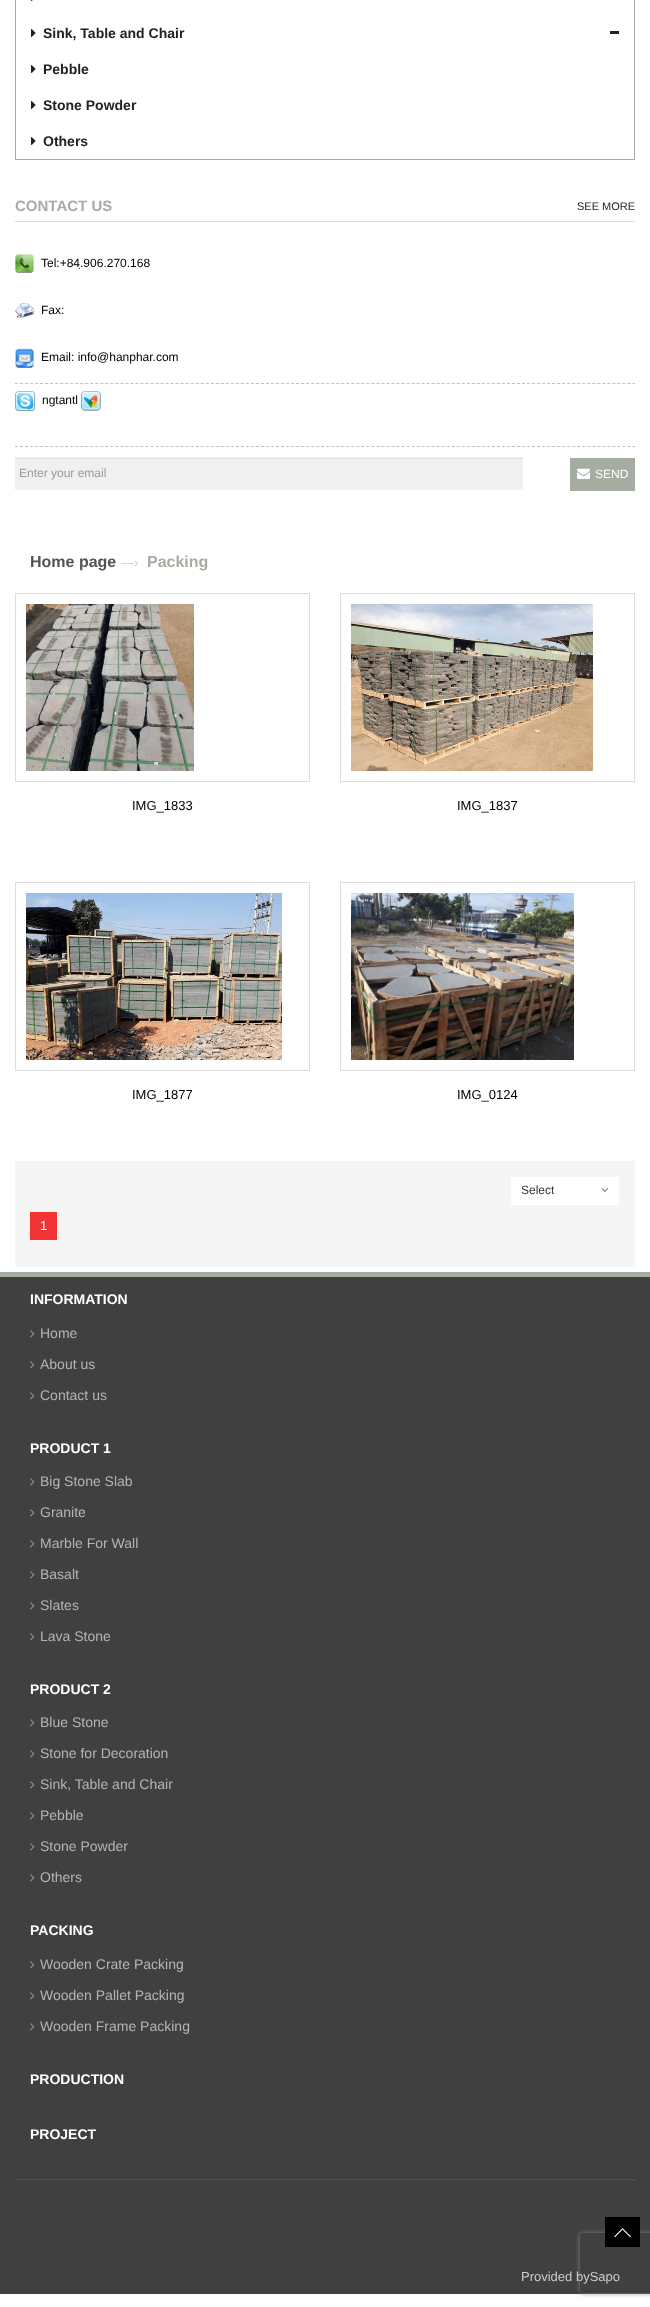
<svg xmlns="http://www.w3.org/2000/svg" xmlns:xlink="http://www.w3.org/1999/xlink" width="650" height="2307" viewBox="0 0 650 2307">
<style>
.cls-1{font:bold 14px Liberation Sans;fill:#222222}
.cls-2{font:bold 15px Liberation Sans;fill:#a5ada2}
.cls-3{font:11px Liberation Sans;fill:#222222}
.cls-4{font:12px Liberation Sans;fill:#000000}
.cls-5{font:12px Liberation Sans;fill:#999999}
.cls-6{font:12px Liberation Sans;fill:#ffffff}
.cls-7{font:bold 16px Liberation Sans;fill:#535353}
.cls-8{font:13px Liberation Sans;fill:#cccccc}
.cls-9{font:bold 16px Liberation Sans;fill:#a5ada2}
.cls-10{font:13px Liberation Sans;fill:#000000}
.cls-11{font:12px Liberation Sans;fill:#333333}
.cls-12{font:13px Liberation Sans;fill:#ffffff}
.cls-13{font:bold 14px Liberation Sans;fill:#ffffff}
.cls-14{font:14px Liberation Sans;fill:#b4b4b4}
</style>
<defs>
<clipPath id="clip1"><path d="M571 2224H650V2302H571ZM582 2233H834C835 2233 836 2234 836 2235V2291C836 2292 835 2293 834 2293H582C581 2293 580 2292 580 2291V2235C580 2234 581 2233 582 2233Z" clip-rule="evenodd"/></clipPath>
</defs>
<rect width="100%" height="100%" fill="#ffffff"/>
<rect fill="none" stroke="#a5ada2" x="15.5" y="-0.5" width="619" height="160"/>
<image xlink:href="image0.png" x="31" y="0" width="2" height="1"/>
<image xlink:href="image1.png" x="31" y="29" width="5" height="8"/>
<rect fill="#222222" x="610" y="31" width="9" height="3"/>
<image xlink:href="image1.png" x="31" y="65" width="5" height="8"/>
<image xlink:href="image1.png" x="31" y="101" width="5" height="8"/>
<image xlink:href="image1.png" x="31" y="137" width="5" height="8"/>
<rect fill="#dddddd" x="15" y="221" width="620" height="1"/>
<path fill="none" stroke="#c1c1c1" stroke-dasharray="3 2.02" d="M15 383.5H635"/>
<image xlink:href="image2.png" x="15" y="254" width="19" height="19"/>
<image xlink:href="image3.png" x="15" y="303" width="19" height="15"/>
<image xlink:href="image4.png" x="15" y="348" width="19" height="20"/>
<path fill="none" stroke="#c1c1c1" stroke-dasharray="3 2.02" d="M15 446.5H635"/>
<image xlink:href="image5.png" x="15" y="391" width="20" height="20"/>
<image xlink:href="image6.png" x="81" y="391" width="20" height="20"/>
<rect fill="#f0f0f0" x="15" y="457" width="508" height="33"/>
<rect fill="#dedede" x="16" y="458" width="506" height="1"/>
<rect fill="#a5ada2" x="570" y="458" width="65" height="33"/>
<image xlink:href="image7.png" x="577" y="468" width="13" height="11"/>
<rect fill="none" stroke="#dddddd" x="15.5" y="593.5" width="294" height="188"/>
<image xlink:href="image8.png" x="26" y="604" width="168" height="167"/>
<rect fill="none" stroke="#dddddd" x="340.5" y="593.5" width="294" height="188"/>
<image xlink:href="image9.png" x="351" y="604" width="242" height="167"/>
<rect fill="none" stroke="#dddddd" x="15.5" y="882.5" width="294" height="188"/>
<image xlink:href="image10.png" x="26" y="893" width="256" height="167"/>
<rect fill="none" stroke="#dddddd" x="340.5" y="882.5" width="294" height="188"/>
<image xlink:href="image11.png" x="351" y="893" width="223" height="167"/>
<rect fill="#f5f5f5" x="15" y="1161" width="620" height="106"/>
<rect fill="#ffffff" x="511" y="1177" width="108" height="28"/>
<image xlink:href="image12.png" x="601" y="1188" width="8" height="4"/>
<rect fill="#f23534" x="30" y="1212" width="27" height="28"/>
<rect fill="#404040" x="0" y="1277" width="650" height="1017"/>
<rect fill="#a5ada2" x="0" y="1272" width="650" height="5"/>
<image xlink:href="image13.png" x="30" y="1330" width="5" height="8"/>
<image xlink:href="image13.png" x="30" y="1361" width="5" height="8"/>
<image xlink:href="image13.png" x="30" y="1392" width="5" height="8"/>
<image xlink:href="image13.png" x="30" y="1478" width="5" height="8"/>
<image xlink:href="image13.png" x="30" y="1509" width="5" height="8"/>
<image xlink:href="image13.png" x="30" y="1540" width="5" height="8"/>
<image xlink:href="image13.png" x="30" y="1571" width="5" height="8"/>
<image xlink:href="image13.png" x="30" y="1602" width="5" height="8"/>
<image xlink:href="image13.png" x="30" y="1633" width="5" height="8"/>
<image xlink:href="image13.png" x="30" y="1719" width="5" height="8"/>
<image xlink:href="image13.png" x="30" y="1750" width="5" height="8"/>
<image xlink:href="image13.png" x="30" y="1781" width="5" height="8"/>
<image xlink:href="image13.png" x="30" y="1812" width="5" height="8"/>
<image xlink:href="image13.png" x="30" y="1843" width="5" height="8"/>
<image xlink:href="image13.png" x="30" y="1874" width="5" height="8"/>
<image xlink:href="image13.png" x="30" y="1961" width="5" height="8"/>
<image xlink:href="image13.png" x="30" y="1992" width="5" height="8"/>
<image xlink:href="image13.png" x="30" y="2023" width="5" height="8"/>
<image xlink:href="image14.png" x="15" y="2178" width="620" height="2"/>
<g clip-path="url(#clip1)">
<rect fill="#808080" filter="blur(2.5px)" x="580" y="2233" width="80" height="60" rx="2"/>
</g>
<rect fill="#000000" fill-opacity="0.98" x="605" y="2217" width="35" height="30"/>
<image xlink:href="image15.png" x="614" y="2228" width="17" height="9"/>
<text class="cls-1" x="43" y="38">Sink, Table and Chair</text>
<text class="cls-1" x="43" y="74">Pebble</text>
<text class="cls-1" x="43" y="110">Stone Powder</text>
<text class="cls-1" x="43" y="146">Others</text>
<text class="cls-2" x="15" y="211">CONTACT US</text>
<text class="cls-3" x="577" y="210">SEE MORE</text>
<text class="cls-4" x="41" y="267">Tel:+84.̣906.270.168</text>
<text class="cls-4" x="41" y="314">Fax:</text>
<text class="cls-4" x="41" y="361">Email: info@hanphar.com</text>
<text class="cls-4" x="42" y="404">ngtantl</text>
<text class="cls-5" x="19" y="477">Enter your email</text>
<text class="cls-6" x="595" y="478">SEND</text>
<text class="cls-7" x="30" y="567">Home page</text>
<text class="cls-8" x="121" y="567">—›</text>
<text class="cls-9" x="147" y="567">Packing</text>
<text class="cls-10" x="132" y="810">IMG_1833</text>
<text class="cls-10" x="457" y="810">IMG_1837</text>
<text class="cls-10" x="132" y="1099">IMG_1877</text>
<text class="cls-10" x="457" y="1099">IMG_0124</text>
<text class="cls-11" x="521" y="1194">Select</text>
<text class="cls-12" x="40" y="1230">1</text>
<text class="cls-13" x="30" y="1304">INFORMATION</text>
<text class="cls-14" x="40" y="1338">Home</text>
<text class="cls-14" x="40" y="1369">About us</text>
<text class="cls-14" x="40" y="1400">Contact us</text>
<text class="cls-13" x="30" y="1453">PRODUCT 1</text>
<text class="cls-14" x="40" y="1486">Big Stone Slab</text>
<text class="cls-14" x="40" y="1517">Granite</text>
<text class="cls-14" x="40" y="1548">Marble For Wall</text>
<text class="cls-14" x="40" y="1579">Basalt</text>
<text class="cls-14" x="40" y="1610">Slates</text>
<text class="cls-14" x="40" y="1641">Lava Stone</text>
<text class="cls-13" x="30" y="1694">PRODUCT 2</text>
<text class="cls-14" x="40" y="1727">Blue Stone</text>
<text class="cls-14" x="40" y="1758">Stone for Decoration</text>
<text class="cls-14" x="40" y="1789">Sink, Table and Chair</text>
<text class="cls-14" x="40" y="1820">Pebble</text>
<text class="cls-14" x="40" y="1851">Stone Powder</text>
<text class="cls-14" x="40" y="1882">Others</text>
<text class="cls-13" x="30" y="1935">PACKING</text>
<text class="cls-14" x="40" y="1969">Wooden Crate Packing</text>
<text class="cls-14" x="40" y="2000">Wooden Pallet Packing</text>
<text class="cls-14" x="40" y="2031">Wooden Frame Packing</text>
<text class="cls-13" x="30" y="2084">PRODUCTION</text>
<text class="cls-13" x="30" y="2139">PROJECT</text>
<text class="cls-8" x="521" y="2281">Provided bySapo</text>
</svg>
